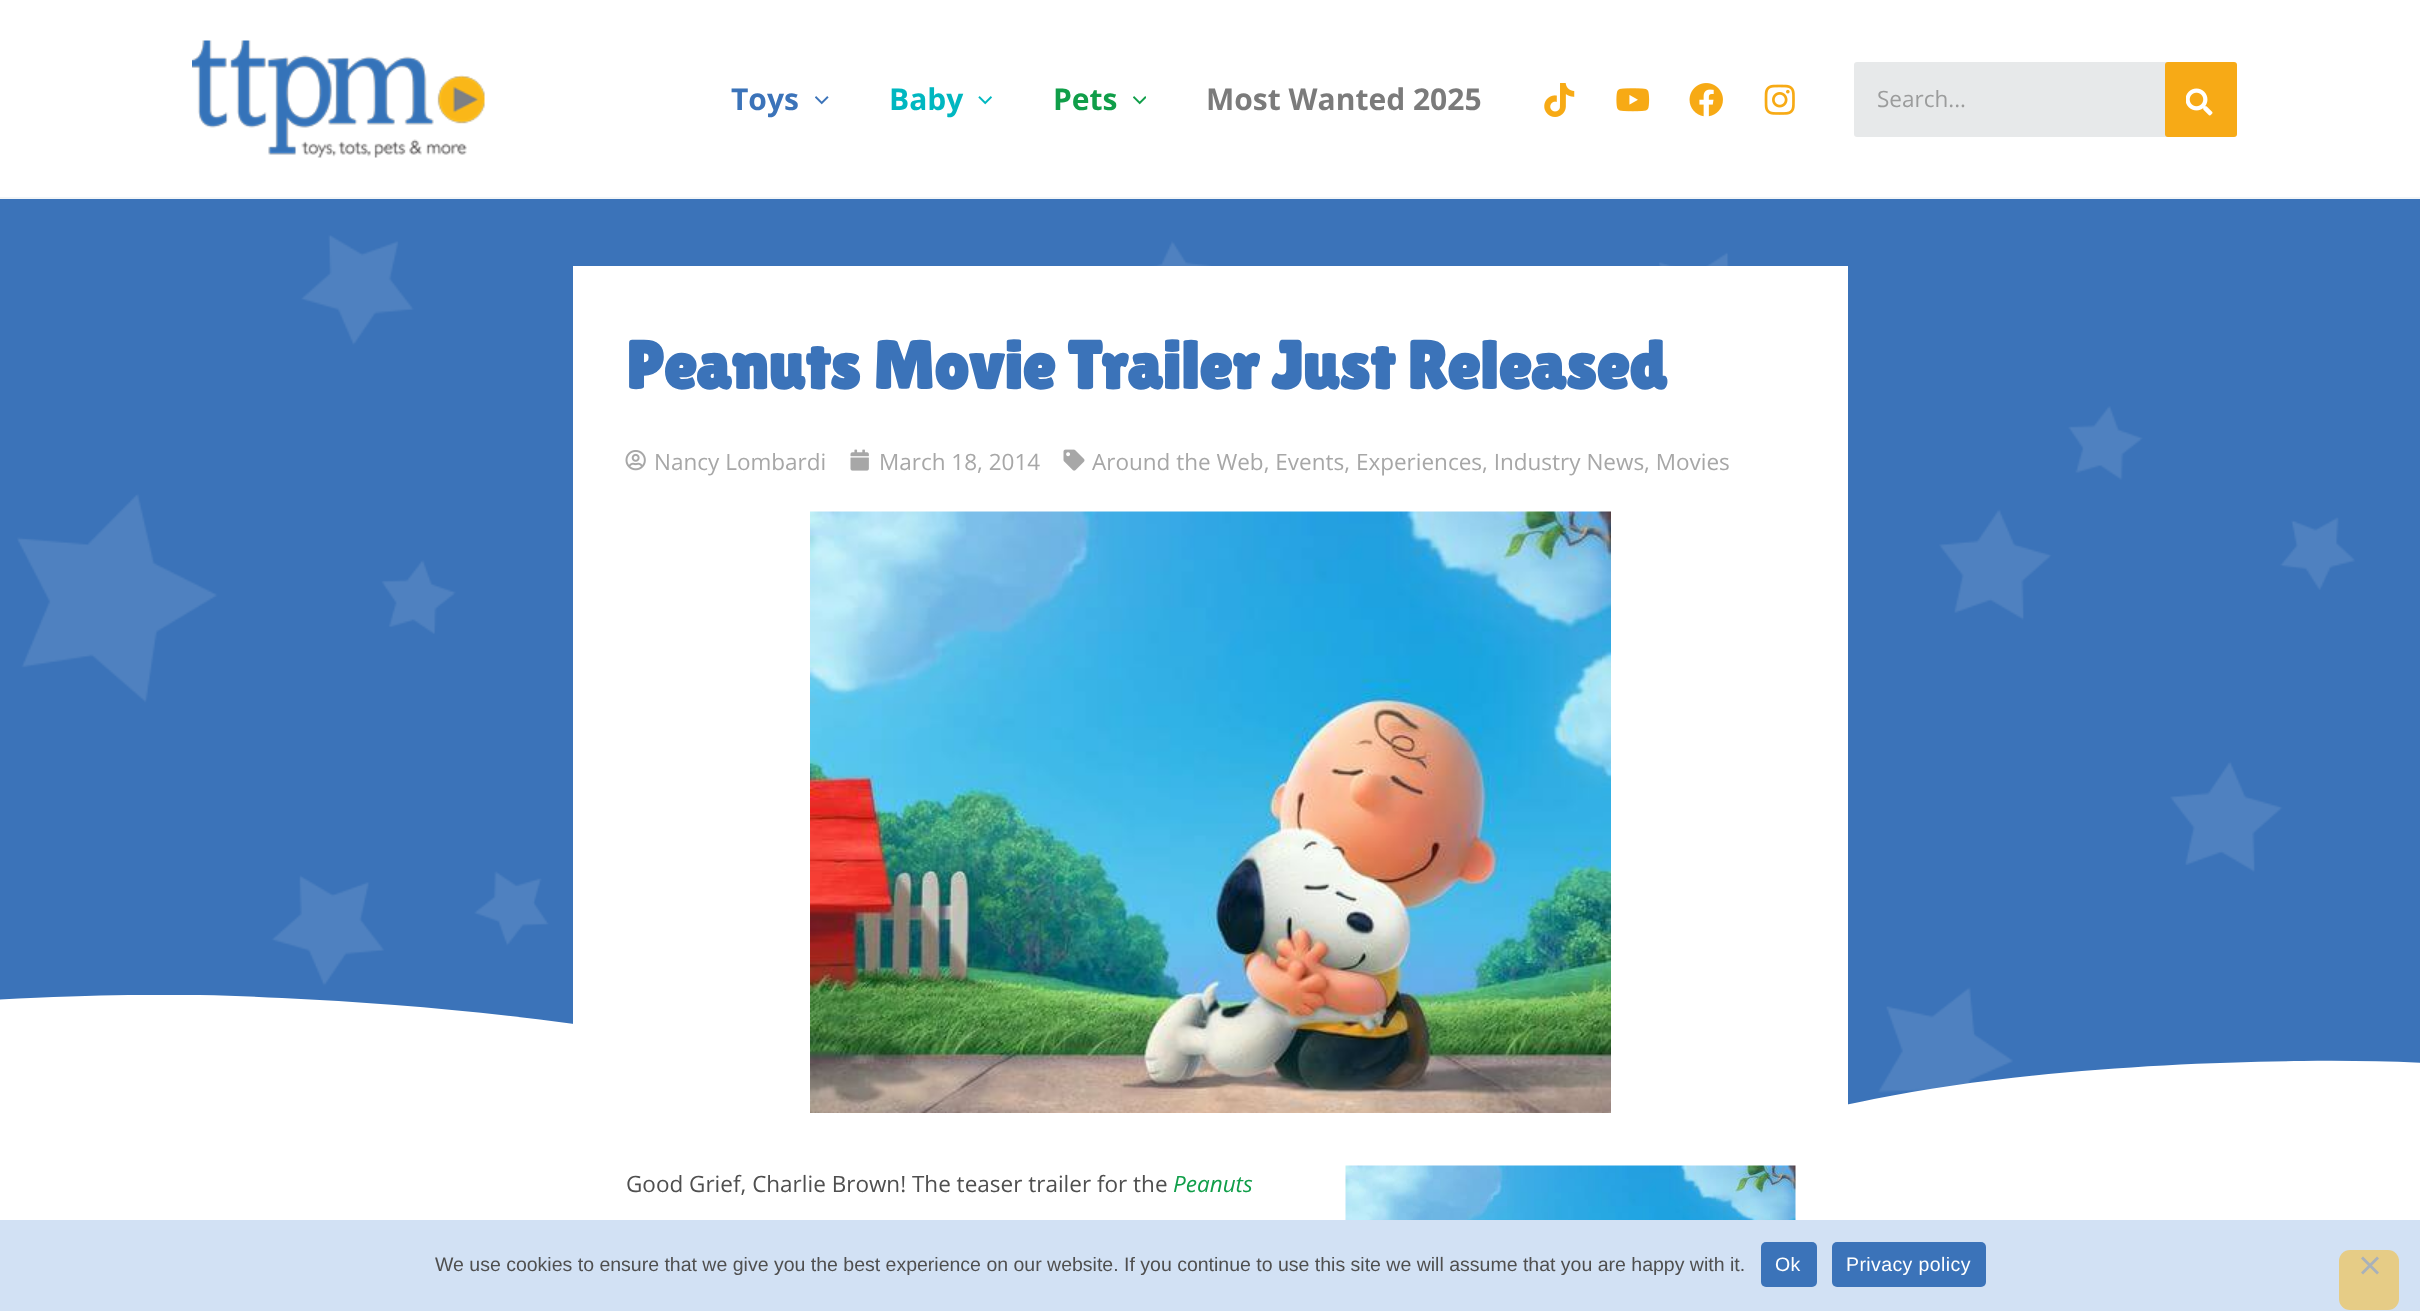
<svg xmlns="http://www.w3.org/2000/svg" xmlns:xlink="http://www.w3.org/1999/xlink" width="2420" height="1311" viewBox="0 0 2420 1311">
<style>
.cls-1{font:bold 30px Open Sans;fill:#3b73b9}
.cls-2{font:bold 30px Open Sans;fill:#00b7c0}
.cls-3{font:bold 30px Open Sans;fill:#109e49}
.cls-4{font:bold 30px Open Sans;fill:#7b7b7b}
.cls-5{font:22.5px Open Sans;fill:#9b9c9c}
.cls-6{font:bold 67.5px Lilita One;fill:#3b73b9}
.cls-7{font:22.5px Open Sans;fill:#a7a7a7}
.cls-8{font:22.5px Open Sans;fill:#4f4f4f}
.cls-9{font:italic 22.5px Open Sans;fill:#109e49}
.cls-10{font:19.5px Liberation Sans;fill:#4f4f4f}
.cls-11{font:19.5px Liberation Sans;letter-spacing:0.4px;fill:#ffffff}
</style>
<defs>
<clipPath id="clip1"><rect x="0" y="995" width="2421" height="172"/></clipPath>
</defs>
<rect width="100%" height="100%" fill="#ffffff"/>
<rect fill="#f2f5f7" x="0" y="197" width="2420" height="2"/>
<image xlink:href="image0.png" x="192" y="40" width="293" height="118"/>
<image xlink:href="image1.png" x="815" y="96" width="14" height="9"/>
<image xlink:href="image2.png" x="978" y="96" width="14" height="9"/>
<image xlink:href="image3.png" x="1133" y="96" width="13" height="9"/>
<image xlink:href="image4.png" x="1544" y="83" width="31" height="34"/>
<image xlink:href="image5.png" x="1616" y="88" width="34" height="24"/>
<image xlink:href="image6.png" x="1689" y="83" width="34" height="34"/>
<image xlink:href="image7.png" x="1764" y="84" width="31" height="31"/>
<rect fill="#e7e9ea" x="1854" y="62" width="375" height="75" rx="3"/>
<rect fill="#f7aa16" x="2165" y="62" width="72" height="75" rx="3"/>
<image xlink:href="image8.png" x="2186" y="88" width="27" height="28"/>
<rect fill="#3b73b9" x="0" y="199" width="2420" height="906"/>
<image xlink:href="image9.png" x="17" y="235" width="2338" height="858"/>
<g clip-path="url(#clip1)">
<path fill="#ffffff" d="M1460 1154C1388 1159 1296 1154 1219 1145C1143 1137 992 1105 897 1084C655 1028 470 1007 282 998C206 994 126 992-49 1002C-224 1012-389 1046-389 1046V1166H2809V1113C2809 1113 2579 1057 2303 1061C2177 1062 2006 1072 1874 1099C1807 1113 1707 1131 1619 1141C1532 1152 1493 1153 1460 1154Z"/>
</g>
<rect fill="#ffffff" x="573" y="266" width="1275" height="839"/>
<image xlink:href="image10.png" x="625" y="450" width="21" height="21"/>
<image xlink:href="image11.png" x="850" y="449" width="19" height="22"/>
<image xlink:href="image12.png" x="1063" y="449" width="22" height="22"/>
<image xlink:href="image13.png" x="810" y="511" width="801" height="602"/>
<image xlink:href="image14.png" x="1345" y="1165" width="451" height="55"/>
<rect fill="#d2e1f4" x="0" y="1220" width="2420" height="91"/>
<rect fill="#3b73b9" x="1761" y="1242" width="56" height="45" rx="5"/>
<rect fill="#3b73b9" x="1832" y="1242" width="154" height="45" rx="5"/>
<rect fill="#e6cc86" x="2339" y="1250" width="60" height="60" rx="11"/>
<path fill="#a9b1ba" d="M2377 1256.5L2379 1258.5L2363 1274.5L2361 1272.5Z"/>
<path fill="#a9b1ba" d="M2361 1258.5L2363 1256.5L2379 1272.5L2377 1274.5Z"/>
<text class="cls-1" x="731" y="110">Toys</text>
<text class="cls-2" x="889" y="110">Baby</text>
<text class="cls-3" x="1053" y="110">Pets</text>
<text class="cls-4" x="1206" y="110">Most Wanted 2025</text>
<text class="cls-5" x="1877" y="107">Search...</text>
<text class="cls-6" x="626" y="389">Peanuts Movie Trailer Just Released</text>
<text class="cls-7" x="654" y="470">Nancy Lombardi</text>
<text class="cls-7" x="879" y="470">March 18, 2014</text>
<text class="cls-7" x="1092" y="470">Around the Web, Events, Experiences, Industry News, Movies</text>
<text class="cls-8" x="626" y="1192">Good Grief, Charlie Brown! The teaser trailer for the</text>
<text class="cls-9" x="1173" y="1192">Peanuts</text>
<text class="cls-10" x="435" y="1271">We use cookies to ensure that we give you the best experience on our website. If you continue to use this site we will assume that you are happy with it.</text>
<text class="cls-11" x="1775" y="1271">Ok</text>
<text class="cls-11" x="1846" y="1271">Privacy policy</text>
</svg>
